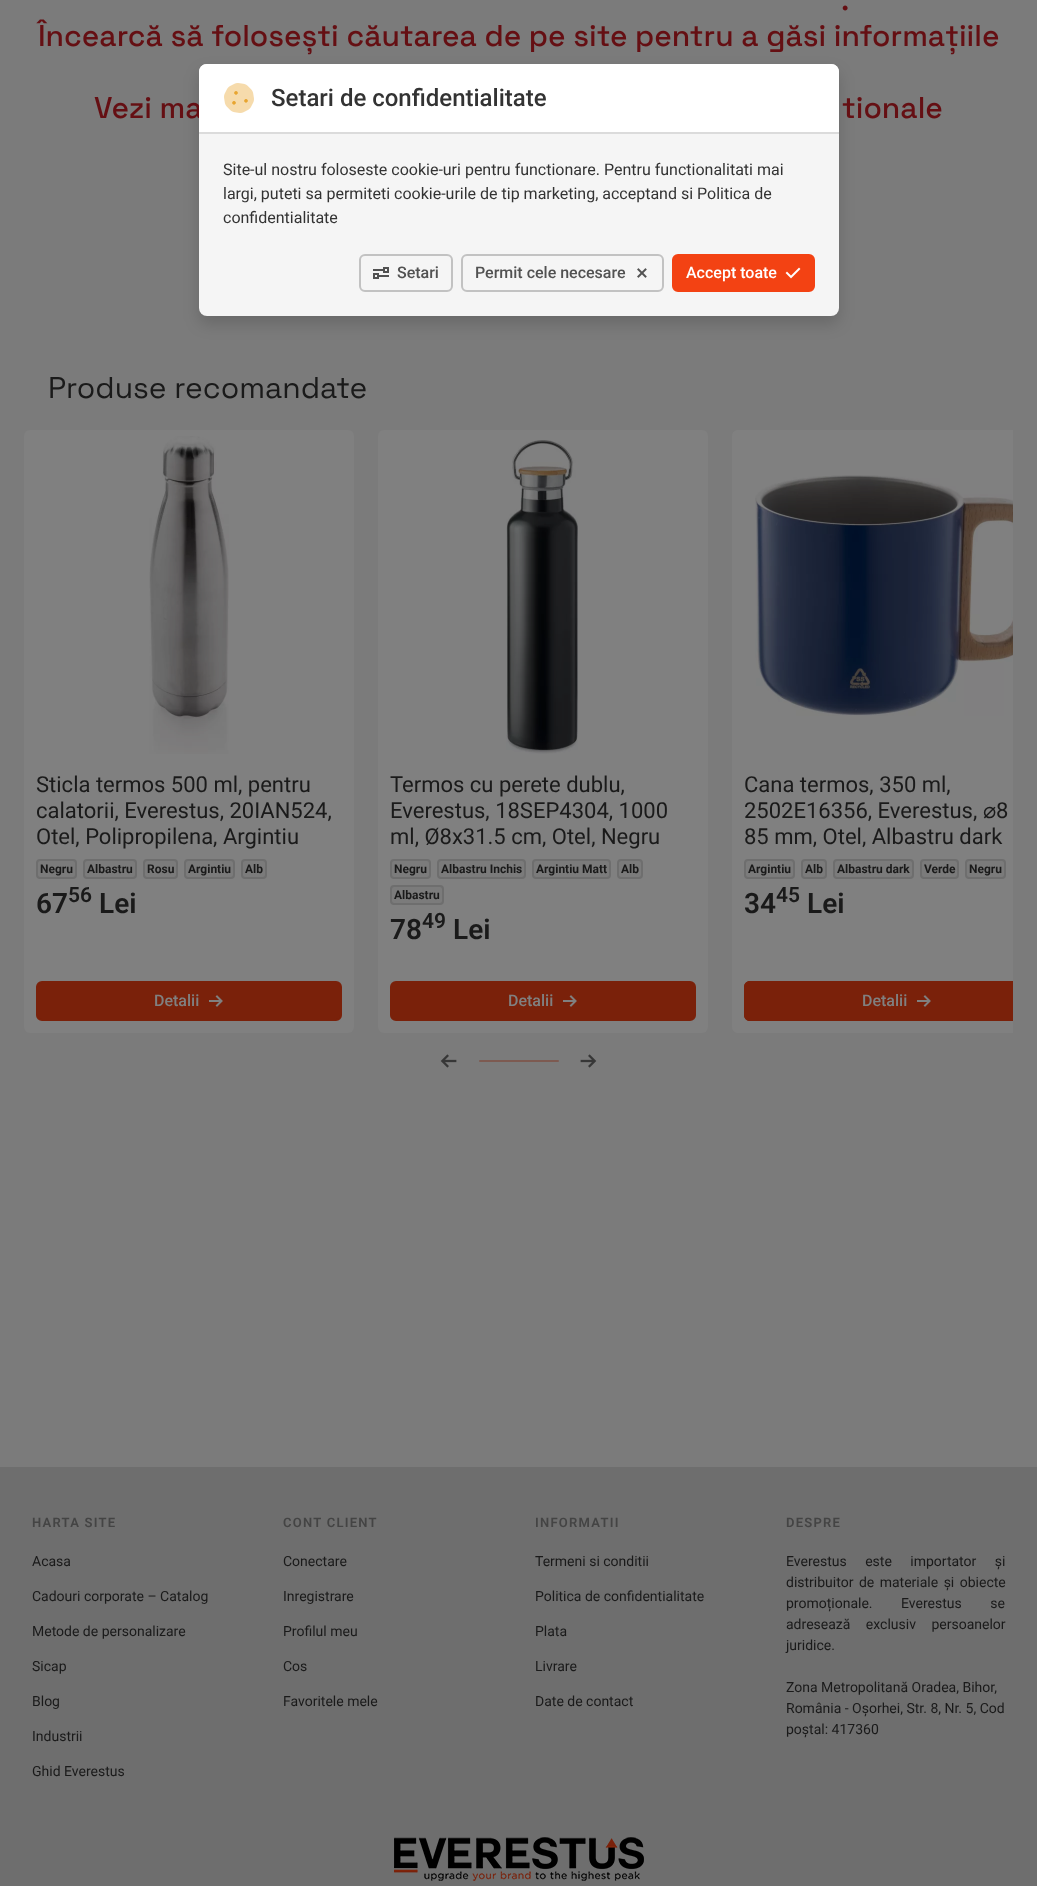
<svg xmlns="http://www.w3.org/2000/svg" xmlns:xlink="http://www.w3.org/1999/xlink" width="1037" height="1886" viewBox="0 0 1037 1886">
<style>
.cls-1{font:500 30px Space Grotesk;fill:#650f13}
.cls-2{font:30px Space Grotesk;fill:#1a1a1a}
.cls-3{font:22px Roboto;fill:#1a1a1a}
.cls-4{font:bold 12px Roboto;fill:#1a1a1a}
.cls-5{font:600 28px Roboto;fill:#1a1a1a}
.cls-6{font:600 21px Roboto;fill:#1a1a1a}
.cls-7{font:500 16px Roboto;fill:#808080}
.cls-8{font:22px DejaVu Sans;fill:#1a1a1a}
.cls-9{font:500 24px Roboto;fill:#333333}
.cls-10{font:16px Roboto;fill:#333333}
.cls-11{font:500 16px Roboto;fill:#525252}
.cls-12{font:500 16px Roboto;fill:#ffffff}
.cls-13{font:600 13px Roboto;letter-spacing:1.25px;fill:#444444}
.cls-14{font:14px Roboto;fill:#1a1a1a}
</style>
<defs>
<linearGradient id="g1" gradientUnits="userSpaceOnUse" x1="25" y1="286" x2="1014" y2="285"><stop offset="0.1" stop-color="#7b7b7b"/><stop offset="0.5" stop-color="#6f6f6f"/><stop offset="0.9" stop-color="#7b7b7b"/></linearGradient>
<linearGradient id="g2" gradientUnits="userSpaceOnUse" x1="519" y1="301" x2="519" y2="270"><stop offset="0" stop-color="#7b7b7b"/><stop offset="1" stop-color="#7b7b7b" stop-opacity="0"/></linearGradient>
<clipPath id="clip1"><rect x="24" y="430" width="989" height="603"/></clipPath>
</defs>
<rect width="100%" height="100%" fill="#7b7b7b"/>
<rect fill="url(#g1)" x="206" y="270" width="627" height="31"/>
<rect fill="url(#g2)" x="206" y="276" width="627" height="25"/>
<rect fill="#808080" x="24" y="430" width="330" height="603" rx="6"/>
<image xlink:href="image0.png" x="149" y="436" width="80" height="318"/>
<rect fill="#7b7b7b" stroke="#6e6e6e" stroke-width="2" x="37" y="860" width="39" height="18" rx="3"/>
<rect fill="#7b7b7b" stroke="#6e6e6e" stroke-width="2" x="84" y="860" width="52" height="18" rx="3"/>
<rect fill="#7b7b7b" stroke="#6e6e6e" stroke-width="2" x="144" y="860" width="33" height="18" rx="3"/>
<rect fill="#7b7b7b" stroke="#6e6e6e" stroke-width="2" x="185" y="860" width="49" height="18" rx="3"/>
<rect fill="#7b7b7b" stroke="#6e6e6e" stroke-width="2" x="242" y="860" width="24" height="18" rx="3"/>
<rect fill="#7a210a" stroke="#7a210a" stroke-width="2" x="37" y="982" width="304" height="38" rx="5"/>
<image xlink:href="image1.png" x="209" y="995" width="14" height="12"/>
<rect fill="#808080" x="378" y="430" width="330" height="603" rx="6"/>
<image xlink:href="image2.png" x="506" y="440" width="72" height="314"/>
<rect fill="#7b7b7b" stroke="#6e6e6e" stroke-width="2" x="391" y="860" width="39" height="18" rx="3"/>
<rect fill="#7b7b7b" stroke="#6e6e6e" stroke-width="2" x="438" y="860" width="87" height="18" rx="3"/>
<rect fill="#7b7b7b" stroke="#6e6e6e" stroke-width="2" x="533" y="860" width="77" height="18" rx="3"/>
<rect fill="#7b7b7b" stroke="#6e6e6e" stroke-width="2" x="618" y="860" width="24" height="18" rx="3"/>
<rect fill="#7b7b7b" stroke="#6e6e6e" stroke-width="2" x="391" y="886" width="52" height="18" rx="3"/>
<rect fill="#7a210a" stroke="#7a210a" stroke-width="2" x="391" y="982" width="304" height="38" rx="5"/>
<image xlink:href="image1.png" x="563" y="995" width="14" height="12"/>
<path fill="#808080" d="M738 430H1013V1033H738C734.5 1033 732 1030.5 732 1027V436C732 432.5 734.5 430 738 430Z"/>
<image xlink:href="image3.png" x="755" y="475" width="258" height="241"/>
<rect fill="#7b7b7b" stroke="#6e6e6e" stroke-width="2" x="745" y="860" width="49" height="18" rx="3"/>
<rect fill="#7b7b7b" stroke="#6e6e6e" stroke-width="2" x="802" y="860" width="24" height="18" rx="3"/>
<rect fill="#7b7b7b" stroke="#6e6e6e" stroke-width="2" x="834" y="860" width="79" height="18" rx="3"/>
<rect fill="#7b7b7b" stroke="#6e6e6e" stroke-width="2" x="921" y="860" width="37" height="18" rx="3"/>
<rect fill="#7b7b7b" stroke="#6e6e6e" stroke-width="2" x="966" y="860" width="39" height="18" rx="3"/>
<path fill="#7a210a" d="M750 981H1013V1021H750C746.5 1021 744 1018.5 744 1015V987C744 983.5 746.5 981 750 981Z"/>
<g clip-path="url(#clip1)">
<rect fill="none" stroke="#7a210a" stroke-width="2" x="745" y="982" width="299" height="38" rx="5"/>
</g>
<image xlink:href="image1.png" x="917" y="995" width="14" height="12"/>
<image xlink:href="image4.png" x="440" y="1054" width="17" height="14"/>
<rect fill="#7d5a51" x="479" y="1060" width="80" height="2" rx="1"/>
<image xlink:href="image5.png" x="580" y="1054" width="17" height="14"/>
<rect fill="#000000" fill-opacity="0.15" filter="blur(8px)" x="199" y="72" width="640" height="252" rx="8"/>
<rect fill="#6e6e6e" x="0" y="1467" width="1037" height="419"/>
<image xlink:href="image10.png" x="394" y="1837" width="250" height="44"/>
<text class="cls-1" x="841" y="10">.</text>
<text class="cls-1" x="38" y="46">Încearcă să folosești căutarea de pe site pentru a găsi informațiile</text>
<text class="cls-1" x="94" y="118">Vezi ma</text>
<text class="cls-1" x="842" y="118">tionale</text>
<text class="cls-2" x="48" y="398">Produse recomandate</text>
<text class="cls-3"><tspan x="36" y="792">Sticla termos 500 ml, pentru</tspan><tspan x="36" y="818">calatorii, Everestus, 20IAN524,</tspan><tspan x="36" y="844">Otel, Polipropilena, Argintiu</tspan></text>
<text class="cls-4" x="40" y="873">Negru</text>
<text class="cls-4" x="87" y="873">Albastru</text>
<text class="cls-4" x="147" y="873">Rosu</text>
<text class="cls-4" x="188" y="873">Argintiu</text>
<text class="cls-4" x="245" y="873">Alb</text>
<text class="cls-5" x="36" y="913">67</text>
<text class="cls-6" x="68" y="902">56</text>
<text class="cls-5" x="99" y="913">Lei</text>
<text class="cls-7" x="154" y="1006">Detalii</text>
<text class="cls-3"><tspan x="390" y="792">Termos cu perete dublu,</tspan><tspan x="390" y="818">Everestus, 18SEP4304, 1000</tspan><tspan x="390" y="844">ml, Ø8x31.5 cm, Otel, Negru</tspan></text>
<text class="cls-4" x="394" y="873">Negru</text>
<text class="cls-4" x="441" y="873">Albastru Inchis</text>
<text class="cls-4" x="536" y="873">Argintiu Matt</text>
<text class="cls-4" x="621" y="873">Alb</text>
<text class="cls-4" x="394" y="899">Albastru</text>
<text class="cls-5" x="390" y="939">78</text>
<text class="cls-6" x="422" y="928">49</text>
<text class="cls-5" x="453" y="939">Lei</text>
<text class="cls-7" x="508" y="1006">Detalii</text>
<text class="cls-3"><tspan x="744" y="792">Cana termos, 350 ml,</tspan><tspan x="744" y="818">2502E16356, Everestus,</tspan></text>
<text class="cls-8" x="983" y="818">⌀</text>
<text class="cls-3" x="996" y="818">8</text>
<text class="cls-3" x="744" y="844">85 mm, Otel, Albastru dark</text>
<text class="cls-4" x="748" y="873">Argintiu</text>
<text class="cls-4" x="805" y="873">Alb</text>
<text class="cls-4" x="837" y="873">Albastru dark</text>
<text class="cls-4" x="924" y="873">Verde</text>
<text class="cls-4" x="969" y="873">Negru</text>
<text class="cls-5" x="744" y="913">34</text>
<text class="cls-6" x="776" y="902">45</text>
<text class="cls-5" x="807" y="913">Lei</text>
<text class="cls-7" x="862" y="1006">Detalii</text>
<rect fill="#f5f5f5" x="199" y="64" width="640" height="252" rx="8"/>
<path fill="#ffffff" d="M207 64H831C835.5 64 839 67.5 839 72V134H199V72C199 67.5 202.5 64 207 64Z"/>
<rect fill="#dbdbdb" x="199" y="132" width="640" height="2"/>
<image xlink:href="image6.png" x="224" y="83" width="30" height="30"/>
<text class="cls-9" x="271" y="106">Setari de confidentialitate</text>
<text class="cls-10"><tspan x="223" y="175">Site-ul nostru foloseste cookie-uri pentru functionare. Pentru functionalitati mai</tspan><tspan x="223" y="199">largi, puteti sa permiteti cookie-urile de tip marketing, acceptand si Politica de</tspan><tspan x="223" y="223">confidentialitate</tspan></text>
<rect fill="none" stroke="#c2c2c2" stroke-width="2" x="360" y="255" width="92" height="36" rx="5"/>
<image xlink:href="image7.png" x="373" y="267" width="16" height="12"/>
<text class="cls-11" x="397" y="278">Setari</text>
<rect fill="none" stroke="#c2c2c2" stroke-width="2" x="462" y="255" width="201" height="36" rx="5"/>
<text class="cls-11" x="475" y="278">Permit cele necesare</text>
<image xlink:href="image8.png" x="637" y="268" width="10" height="10"/>
<rect fill="#f34213" stroke="#f34213" stroke-width="2" x="673" y="255" width="141" height="36" rx="5"/>
<text class="cls-12" x="686" y="278">Accept toate</text>
<image xlink:href="image9.png" x="785" y="267" width="16" height="12"/>
<text class="cls-13" x="32" y="1527">HARTA SITE</text>
<text class="cls-14" x="32" y="1566">Acasa</text>
<text class="cls-14" x="32" y="1601">Cadouri corporate – Catalog</text>
<text class="cls-14" x="32" y="1636">Metode de personalizare</text>
<text class="cls-14" x="32" y="1671">Sicap</text>
<text class="cls-14" x="32" y="1706">Blog</text>
<text class="cls-14" x="32" y="1741">Industrii</text>
<text class="cls-14" x="32" y="1776">Ghid Everestus</text>
<text class="cls-13" x="283" y="1527">CONT CLIENT</text>
<text class="cls-14" x="283" y="1566">Conectare</text>
<text class="cls-14" x="283" y="1601">Inregistrare</text>
<text class="cls-14" x="283" y="1636">Profilul meu</text>
<text class="cls-14" x="283" y="1671">Cos</text>
<text class="cls-14" x="283" y="1706">Favoritele mele</text>
<text class="cls-13" x="535" y="1527">INFORMATII</text>
<text class="cls-14" x="535" y="1566">Termeni si conditii</text>
<text class="cls-14" x="535" y="1601">Politica de confidentialitate</text>
<text class="cls-14" x="535" y="1636">Plata</text>
<text class="cls-14" x="535" y="1671">Livrare</text>
<text class="cls-14" x="535" y="1706">Date de contact</text>
<text class="cls-13" x="786" y="1527">DESPRE</text>
<text class="cls-14"><tspan x="786" y="1566" word-spacing="15">Everestus este importator și</tspan><tspan x="786" y="1587" word-spacing="2">distribuitor de materiale și obiecte</tspan><tspan x="786" y="1608" word-spacing="25">promoționale. Everestus se</tspan><tspan x="786" y="1629" word-spacing="12">adresează exclusiv persoanelor</tspan><tspan x="786" y="1650">juridice.</tspan></text>
<text class="cls-14"><tspan x="786" y="1692">Zona Metropolitană Oradea, Bihor,</tspan><tspan x="786" y="1713">România - Oșorhei, Str. 8, Nr. 5, Cod</tspan><tspan x="786" y="1734">poștal: 417360</tspan></text>
</svg>
